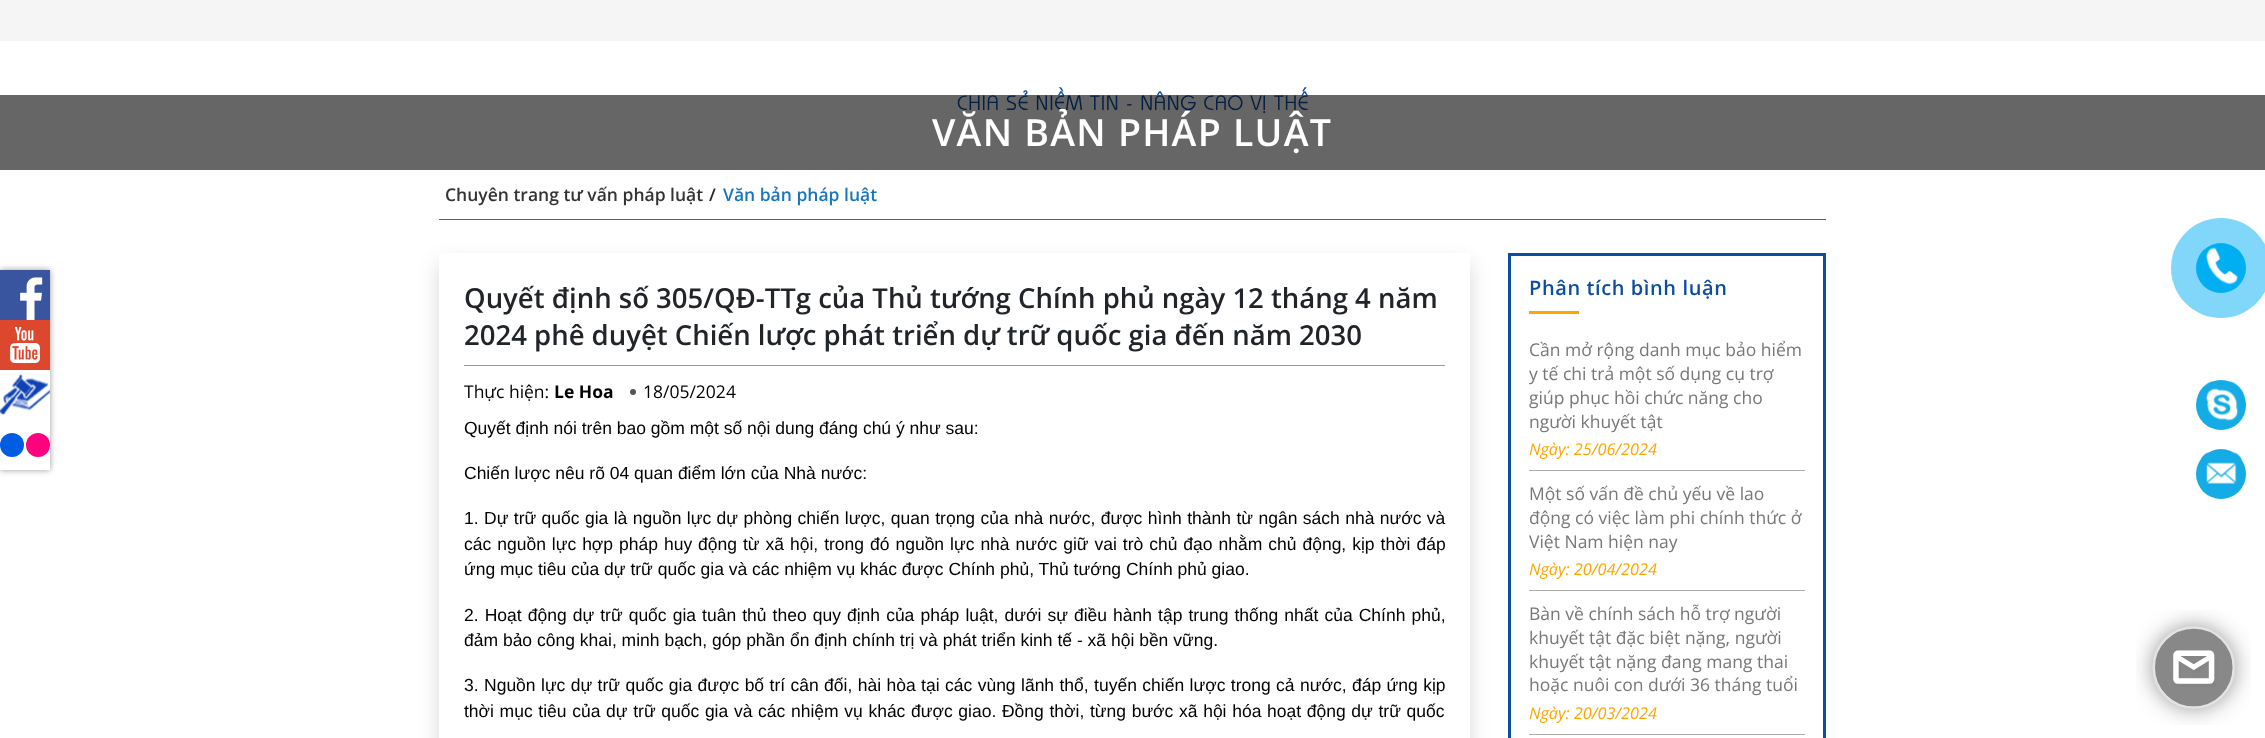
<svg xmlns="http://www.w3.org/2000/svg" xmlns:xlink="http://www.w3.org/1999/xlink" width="2265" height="738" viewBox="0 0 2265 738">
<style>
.cls-1{font:bold 20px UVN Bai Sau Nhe;letter-spacing:1.25px;fill:#0c4da1}
.cls-2{font:600 37.5px Open Sans;letter-spacing:1.25px;fill:#ffffff}
.cls-3{font:600 17.5px Open Sans;fill:#333333}
.cls-4{font:600 17.5px Open Sans;fill:#212529}
.cls-5{font:600 17.5px Open Sans;fill:#1975bc}
.cls-6{font:600 27.5px Open Sans;fill:#212529}
.cls-7{font:17.5px Open Sans;fill:#000000}
.cls-8{font:bold 17.5px Open Sans;fill:#000000}
.cls-9{font:17.5px Liberation Sans;fill:#000000}
.cls-10{font:600 20px Open Sans;letter-spacing:0.6px;fill:#0c4da1}
.cls-11{font:17.5px Open Sans;fill:#777777}
.cls-12{font:italic 16.25px Open Sans;fill:#ffa500}
</style>
<defs>
<clipPath id="clip1"><path d="M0 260H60V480H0ZM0 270H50V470H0Z" clip-rule="evenodd"/></clipPath>
<clipPath id="clip2"><path d="M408 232H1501V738H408ZM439 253H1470V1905H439Z" clip-rule="evenodd"/></clipPath>
</defs>
<rect width="100%" height="100%" fill="#ffffff"/>
<rect fill="#f5f5f5" x="0" y="0" width="2265" height="41"/>
<g clip-path="url(#clip1)">
<rect fill="#999999" filter="blur(3px)" x="0" y="270" width="50" height="200"/>
</g>
<image xlink:href="image0.png" x="0" y="270" width="50" height="50"/>
<image xlink:href="image1.png" x="0" y="320" width="50" height="50"/>
<image xlink:href="image2.png" x="0" y="374" width="50" height="41"/>
<circle fill="#005de1" cx="12" cy="445" r="12"/>
<circle fill="#ff007e" cx="38" cy="445" r="12"/>
<rect fill="#1976bc" x="439" y="219" width="1387" height="1"/>
<g clip-path="url(#clip2)">
<rect fill="#000000" fill-opacity="0.15" filter="blur(10px)" x="439" y="263" width="1031" height="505"/>
</g>
<rect fill="#999999" x="464" y="365" width="981" height="1"/>
<circle fill="#555555" cx="633" cy="392" r="3"/>
<rect fill="none" stroke="#0c4da1" stroke-width="3" x="1509.5" y="254.5" width="315" height="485"/>
<rect fill="#ffa500" x="1529" y="311" width="50" height="3"/>
<rect fill="#aaaaaa" x="1529" y="470" width="276" height="1"/>
<rect fill="#aaaaaa" x="1529" y="590" width="276" height="1"/>
<rect fill="#aaaaaa" x="1529" y="734" width="276" height="1"/>
<circle fill="#80d7f9" cx="2221" cy="268" r="50"/>
<circle fill="#00aff2" cx="2221" cy="268" r="25"/>
<image xlink:href="image3.png" x="2209" y="251" width="28" height="31"/>
<image xlink:href="image4.png" x="2206" y="247" width="32" height="38"/>
<circle fill="#15ace5" cx="2221" cy="405" r="25"/>
<image xlink:href="image5.png" x="2198" y="381" width="47" height="47"/>
<circle fill="#15ace5" cx="2221" cy="474" r="25"/>
<image xlink:href="image6.png" x="2201" y="452" width="41" height="42"/>
<image xlink:href="image7.png" x="2136" y="610" width="115" height="115"/>
<text class="cls-1" x="957" y="110">CHIA SẺ NIỀM TIN - NÂNG CAO VỊ THẾ</text>
<rect fill="#000000" fill-opacity="0.6" x="0" y="95" width="2265" height="75"/>
<text class="cls-2" x="932" y="146">VĂN BẢN PHÁP LUẬT</text>
<text class="cls-3" x="445" y="201">Chuyên trang tư vấn pháp luật</text>
<text class="cls-4" x="709" y="201">/</text>
<text class="cls-5" x="723" y="201">Văn bản pháp luật</text>
<text class="cls-6"><tspan x="464" y="308">Quyết định số 305/QĐ-TTg của Thủ tướng Chính phủ ngày 12 tháng 4 năm</tspan><tspan x="464" y="345">2024 phê duyệt Chiến lược phát triển dự trữ quốc gia đến năm 2030</tspan></text>
<text class="cls-7" x="464" y="398">Thực hiện:</text>
<text class="cls-8" x="554" y="398">Le Hoa</text>
<text class="cls-7" x="643" y="398">18/05/2024</text>
<text class="cls-9" x="464" y="434">Quyết định nói trên bao gồm một số nội dung đáng chú ý như sau:</text>
<text class="cls-9" x="464" y="479">Chiến lược nêu rõ 04 quan điểm lớn của Nhà nước:</text>
<text class="cls-9"><tspan x="464" y="524" word-spacing="0.55">1. Dự trữ quốc gia là nguồn lực dự phòng chiến lược, quan trọng của nhà nước, được hình thành từ ngân sách nhà nước và</tspan><tspan x="464" y="550" word-spacing="1.1">các nguồn lực hợp pháp huy động từ xã hội, trong đó nguồn lực nhà nước giữ vai trò chủ đạo nhằm chủ động, kịp thời đáp</tspan><tspan x="464" y="575">ứng mục tiêu của dự trữ quốc gia và các nhiệm vụ khác được Chính phủ, Thủ tướng Chính phủ giao.</tspan></text>
<text class="cls-9"><tspan x="464" y="621" word-spacing="1.2">2. Hoạt động dự trữ quốc gia tuân thủ theo quy định của pháp luật, dưới sự điều hành tập trung thống nhất của Chính phủ,</tspan><tspan x="464" y="646">đảm bảo công khai, minh bạch, góp phần ổn định chính trị và phát triển kinh tế - xã hội bền vững.</tspan></text>
<text class="cls-9"><tspan x="464" y="691" word-spacing="0.55">3. Nguồn lực dự trữ quốc gia được bố trí cân đối, hài hòa tại các vùng lãnh thổ, tuyến chiến lược trong cả nước, đáp ứng kịp</tspan><tspan x="464" y="717" word-spacing="0.8">thời mục tiêu của dự trữ quốc gia và các nhiệm vụ khác được giao. Đồng thời, từng bước xã hội hóa hoạt động dự trữ quốc</tspan></text>
<text class="cls-10" x="1529" y="295">Phân tích bình luận</text>
<text class="cls-11"><tspan x="1529" y="356">Cần mở rộng danh mục bảo hiểm</tspan><tspan x="1529" y="380">y tế chi trả một số dụng cụ trợ</tspan><tspan x="1529" y="404">giúp phục hồi chức năng cho</tspan><tspan x="1529" y="428">người khuyết tật</tspan></text>
<text class="cls-12" x="1529" y="455">Ngày: 25/06/2024</text>
<text class="cls-11"><tspan x="1529" y="500">Một số vấn đề chủ yếu về lao</tspan><tspan x="1529" y="524">động có việc làm phi chính thức ở</tspan><tspan x="1529" y="548">Việt Nam hiện nay</tspan></text>
<text class="cls-12" x="1529" y="575">Ngày: 20/04/2024</text>
<text class="cls-11"><tspan x="1529" y="620">Bàn về chính sách hỗ trợ người</tspan><tspan x="1529" y="644">khuyết tật đặc biệt nặng, người</tspan><tspan x="1529" y="668">khuyết tật nặng đang mang thai</tspan><tspan x="1529" y="691">hoặc nuôi con dưới 36 tháng tuổi</tspan></text>
<text class="cls-12" x="1529" y="719">Ngày: 20/03/2024</text>
</svg>
